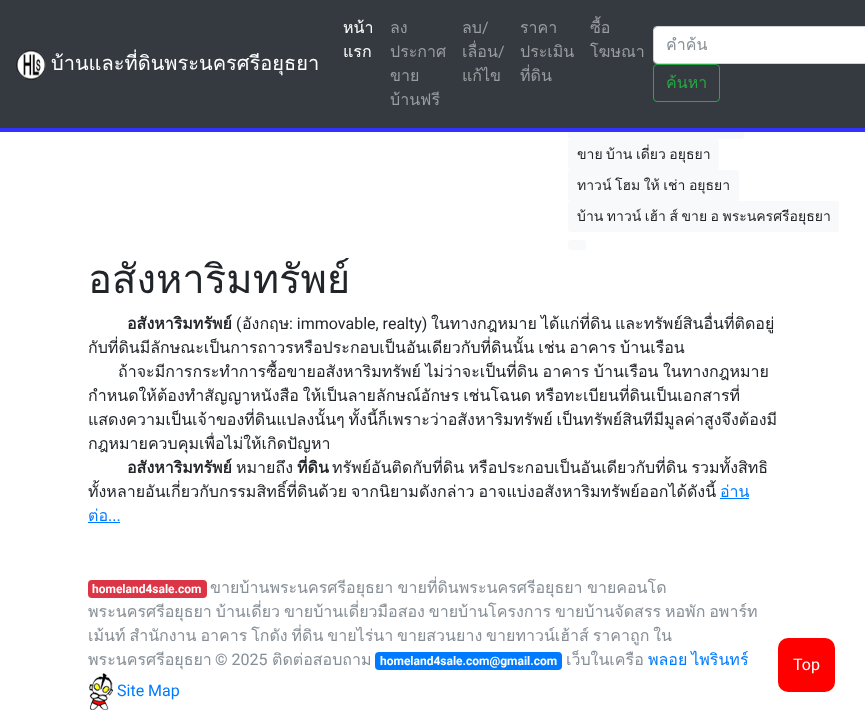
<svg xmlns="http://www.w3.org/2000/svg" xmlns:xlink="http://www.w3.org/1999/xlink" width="865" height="712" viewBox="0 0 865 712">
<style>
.cls-1{font:20px Loma;fill:#ffffff}
.cls-2{font:16px Loma;fill:#ffffff}
.cls-3{font:16px Loma;fill:#9a9da0}
.cls-4{font:16px Roboto;fill:#9a9da0}
.cls-5{font:16px Loma;fill:#868e96}
.cls-6{font:16px Loma;fill:#28a745}
.cls-7{font:14px Loma;fill:#212529}
.cls-8{font:40px Loma;fill:#212529}
.cls-9{font:bold 16px Loma;fill:#212529}
.cls-10{font:16px Loma;fill:#212529}
.cls-11{font:16px Roboto;fill:#212529}
.cls-12{font:16px Loma;fill:#007bff}
.cls-13{font:16px Roboto;fill:#007bff}
.cls-14{font:bold 12px Roboto;fill:#ffffff}
.cls-15{font:16px Roboto;fill:#868e96}
.cls-16{font:16px Roboto;fill:#ffffff}
</style>
<defs>
<clipPath id="clip1"><rect x="666" y="32" width="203" height="25"/></clipPath>
</defs>
<rect width="100%" height="100%" fill="#ffffff"/>
<rect fill="#f8f9fa" x="568" y="108" width="176" height="31" rx="3"/>
<rect fill="#343a40" x="0" y="0" width="865" height="128"/>
<rect fill="#3333ff" x="0" y="128" width="865" height="4"/>
<image xlink:href="image0.png" x="16" y="50" width="30" height="30"/>
<rect fill="#ffffff" x="654" y="27" width="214" height="36" rx="3"/>
<rect fill="none" stroke="#ced4da" x="653.5" y="26.5" width="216" height="37" rx="3.5"/>
<rect fill="none" stroke="#28a745" x="653.5" y="64.5" width="66" height="37" rx="3.5"/>
<rect fill="#f8f9fa" x="568" y="139" width="151" height="31" rx="3"/>
<rect fill="#f8f9fa" x="568" y="170" width="171" height="31" rx="3"/>
<rect fill="#f8f9fa" x="568" y="201" width="271" height="31" rx="3"/>
<rect fill="#f8f9fa" x="568" y="240" width="18" height="10" rx="3"/>
<rect fill="#007bff" x="720" y="498" width="29" height="1"/>
<rect fill="#007bff" x="88" y="522" width="32" height="1"/>
<rect fill="#dc3545" x="88" y="580" width="119" height="18" rx="4"/>
<rect fill="#007bff" x="375" y="652" width="187" height="18" rx="4"/>
<image xlink:href="image1.png" x="89" y="673" width="24" height="37"/>
<rect fill="#ff0000" x="778" y="638" width="57" height="54" rx="10"/>
<text class="cls-1" x="51" y="70">บ้านและที่ดินพระนครศรีอยุธยา</text>
<text class="cls-2"><tspan x="343" y="33">หน้า</tspan><tspan x="343" y="57">แรก</tspan></text>
<text class="cls-3"><tspan x="390" y="33">ลง</tspan><tspan x="390" y="57">ประกาศ</tspan><tspan x="390" y="81">ขาย</tspan><tspan x="390" y="105">บ้านฟรี</tspan></text>
<text class="cls-3" x="462" y="33">ลบ</text>
<text class="cls-4" x="482" y="33">/</text>
<text class="cls-3" x="462" y="57">เลื่อน</text>
<text class="cls-4" x="498" y="57">/</text>
<text class="cls-3" x="462" y="81">แก้ไข</text>
<text class="cls-3"><tspan x="520" y="33">ราคา</tspan><tspan x="520" y="57">ประเมิน</tspan><tspan x="520" y="81">ที่ดิน</tspan></text>
<text class="cls-3"><tspan x="590" y="33">ซื้อ</tspan><tspan x="590" y="57">โฆษณา</tspan></text>
<g clip-path="url(#clip1)">
<text class="cls-5" x="666" y="50">คำค้น</text>
</g>
<text class="cls-6" x="666" y="88">ค้นหา</text>
<text class="cls-7" x="577" y="159" word-spacing="-1.25">ขาย บ้าน เดี่ยว อยุธยา</text>
<text class="cls-7" x="577" y="190" word-spacing="-1.25">ทาวน์ โฮม ให้ เช่า อยุธยา</text>
<text class="cls-7" x="577" y="221" word-spacing="-1.25">บ้าน ทาวน์ เฮ้า ส์ ขาย อ พระนครศรีอยุธยา</text>
<text class="cls-8" x="88" y="293">อสังหาริมทรัพย์</text>
<text class="cls-9" x="127" y="329">อสังหาริมทรัพย์</text>
<text class="cls-10" x="431" y="329">ในทางกฎหมาย</text>
<text class="cls-10" x="541" y="329">ได้แก่ที่ดิน</text>
<text class="cls-10" x="615" y="329">และทรัพย์สินอื่นที่ติดอยู่</text>
<text class="cls-11" x="236" y="329">(</text>
<text class="cls-10" x="242" y="329">อังกฤษ</text>
<text class="cls-11" x="289" y="329">: immovable, realty)</text>
<text class="cls-10" x="88" y="353" word-spacing="-1.5">กับที่ดินมีลักษณะเป็นการถาวรหรือประกอบเป็นอันเดียวกับที่ดินนั้น เช่น อาคาร บ้านเรือน</text>
<text class="cls-10" x="118" y="377" word-spacing="-1">ถ้าจะมีการกระทำการซื้อขายอสังหาริมทรัพย์ ไม่ว่าจะเป็นที่ดิน อาคาร บ้านเรือน ในทางกฎหมาย</text>
<text class="cls-10"><tspan x="88" y="401" word-spacing="-1.5">กำหนดให้ต้องทำสัญญาหนังสือ ให้เป็นลายลักษณ์อักษร เช่นโฉนด หรือทะเบียนที่ดินเป็นเอกสารที่</tspan><tspan x="88" y="425" word-spacing="-1.5">แสดงความเป็นเจ้าของที่ดินแปลงนั้นๆ ทั้งนี้ก็เพราะว่าอสังหาริมทรัพย์ เป็นทรัพย์สินทีมีมูลค่าสูงจึงต้องมี</tspan><tspan x="88" y="449">กฎหมายควบคุมเพื่อไม่ให้เกิดปัญหา</tspan></text>
<text class="cls-9" x="127" y="473">อสังหาริมทรัพย์</text>
<text class="cls-10" x="236" y="473">หมายถึง</text>
<text class="cls-9" x="297" y="473">ที่ดิน</text>
<text class="cls-10" x="332" y="473" word-spacing="-1">ทรัพย์อันติดกับที่ดิน หรือประกอบเป็นอันเดียวกับที่ดิน รวมทั้งสิทธิ</text>
<text class="cls-10" x="88" y="497" word-spacing="-1.5">ทั้งหลายอันเกี่ยวกับกรรมสิทธิ์ที่ดินด้วย จากนิยามดังกล่าว อาจแบ่งอสังหาริมทรัพย์ออกได้ดังนี้</text>
<text class="cls-12" x="720" y="497">อ่าน</text>
<text class="cls-12" x="88" y="521">ต่อ</text>
<text class="cls-13" x="108" y="521">...</text>
<text class="cls-14" x="92" y="593">homeland4sale.com</text>
<text class="cls-5" x="210" y="593" word-spacing="-1">ขายบ้านพระนครศรีอยุธยา ขายที่ดินพระนครศรีอยุธยา ขายคอนโด</text>
<text class="cls-5"><tspan x="88" y="617" word-spacing="-1.5">พระนครศรีอยุธยา บ้านเดี่ยว ขายบ้านเดี่ยวมือสอง ขายบ้านโครงการ ขายบ้านจัดสรร หอพัก อพาร์ท</tspan><tspan x="88" y="641" word-spacing="-1.5">เม้นท์ สำนักงาน อาคาร โกดัง ที่ดิน ขายไร่นา ขายสวนยาง ขายทาวน์เฮ้าส์ ราคาถูก ใน</tspan><tspan x="88" y="665">พระนครศรีอยุธยา</tspan></text>
<text class="cls-15" x="215" y="665">© 2025</text>
<text class="cls-5" x="272" y="665">ติดต่อสอบถาม</text>
<text class="cls-14" x="380" y="665">homeland4sale.com@gmail.com</text>
<text class="cls-5" x="566" y="665">เว็บในเครือ</text>
<text class="cls-12" x="648" y="665" word-spacing="-1.5">พลอย ไพรินทร์</text>
<text class="cls-13" x="117" y="696">Site Map</text>
<text class="cls-16" x="793" y="670">Top</text>
</svg>
